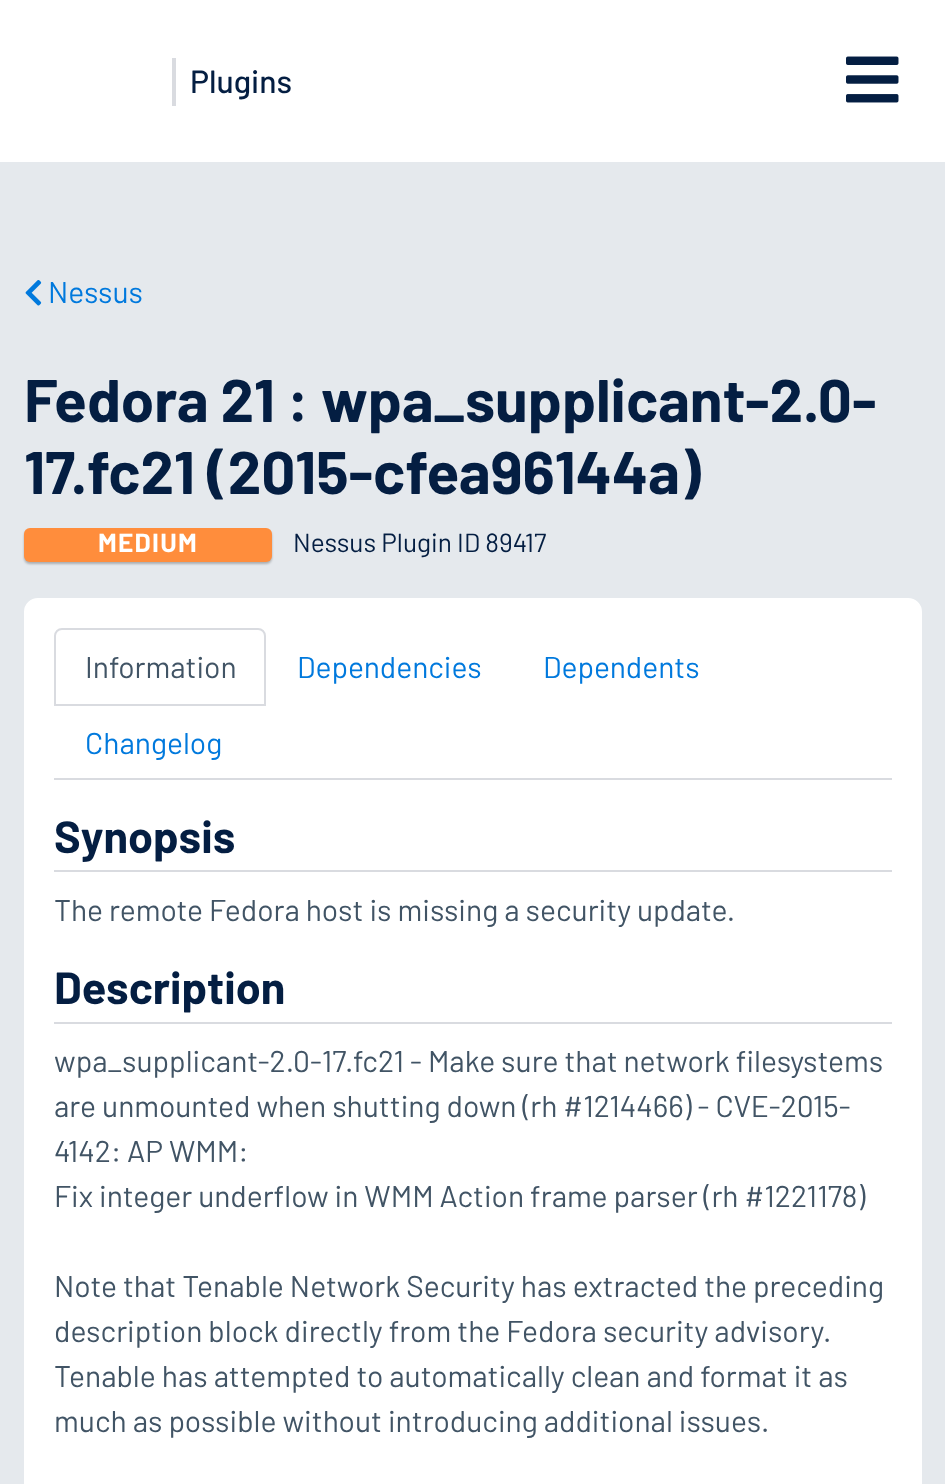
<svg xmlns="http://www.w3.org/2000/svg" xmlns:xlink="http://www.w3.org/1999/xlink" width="945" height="1484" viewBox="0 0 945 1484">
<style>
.cls-1{font:500 32px Barlow;fill:#041e42}
.cls-2{font:30px Barlow;fill:#0079dd}
.cls-3{font:bold 60px Barlow;fill:#041e42}
.cls-4{font:bold 26.25px Barlow;letter-spacing:1.25px;fill:#ffffff}
.cls-5{font:26.25px Barlow;fill:#041e42}
.cls-6{font:30px Barlow;fill:#415465}
.cls-7{font:bold 45px Barlow;fill:#041e42}
</style>
<rect width="100%" height="100%" fill="#ffffff"/>
<rect fill="#d9dbe0" x="172" y="58" width="4" height="48"/>
<image xlink:href="image0.png" x="846" y="56" width="53" height="47"/>
<rect fill="#e5e9ed" x="0" y="162" width="945" height="1322"/>
<image xlink:href="image1.png" x="25" y="280" width="17" height="26"/>
<rect fill="#000000" fill-opacity="0.25" filter="blur(1px)" x="24" y="530" width="248" height="34" rx="6"/>
<rect fill="#ff8d3c" x="24" y="528" width="248" height="34" rx="6"/>
<rect fill="#ffffff" stroke="#ffffff" stroke-width="2" x="25" y="599" width="896" height="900" rx="13"/>
<rect fill="#d9dbe0" x="54" y="778" width="838" height="2"/>
<path fill="none" stroke="#d9dbe0" stroke-width="2" d="M62 629H258C262 629 265 632 265 636V705H55V636C55 632 58 629 62 629Z"/>
<rect fill="#d9dbe0" x="54" y="870" width="838" height="2"/>
<rect fill="#d9dbe0" x="54" y="1022" width="838" height="2"/>
<text class="cls-1" x="190" y="93">Plugins</text>
<text class="cls-2" x="48" y="303">Nessus</text>
<text class="cls-3"><tspan x="24" y="422">Fedora 21 : wpa_supplicant-2.0-</tspan><tspan x="24" y="494">17.fc21 (2015-cfea96144a)</tspan></text>
<text class="cls-4" x="98" y="552">MEDIUM</text>
<text class="cls-5" x="293" y="552">Nessus Plugin ID 89417</text>
<text class="cls-6" x="85" y="678">Information</text>
<text class="cls-2" x="297" y="678">Dependencies</text>
<text class="cls-2" x="543" y="678">Dependents</text>
<text class="cls-2" x="85" y="754">Changelog</text>
<text class="cls-7" x="54" y="853">Synopsis</text>
<text class="cls-6" x="54" y="921">The remote Fedora host is missing a security update.</text>
<text class="cls-7" x="54" y="1004">Description</text>
<text class="cls-6"><tspan x="54" y="1072">wpa_supplicant-2.0-17.fc21 - Make sure that network filesystems</tspan><tspan x="54" y="1117">are unmounted when shutting down (rh #1214466) - CVE-2015-</tspan><tspan x="54" y="1162">4142: AP WMM:</tspan><tspan x="54" y="1207">Fix integer underflow in WMM Action frame parser (rh #1221178)</tspan></text>
<text class="cls-6"><tspan x="54" y="1297">Note that Tenable Network Security has extracted the preceding</tspan><tspan x="54" y="1342">description block directly from the Fedora security advisory.</tspan><tspan x="54" y="1387">Tenable has attempted to automatically clean and format it as</tspan><tspan x="54" y="1432">much as possible without introducing additional issues.</tspan></text>
</svg>
